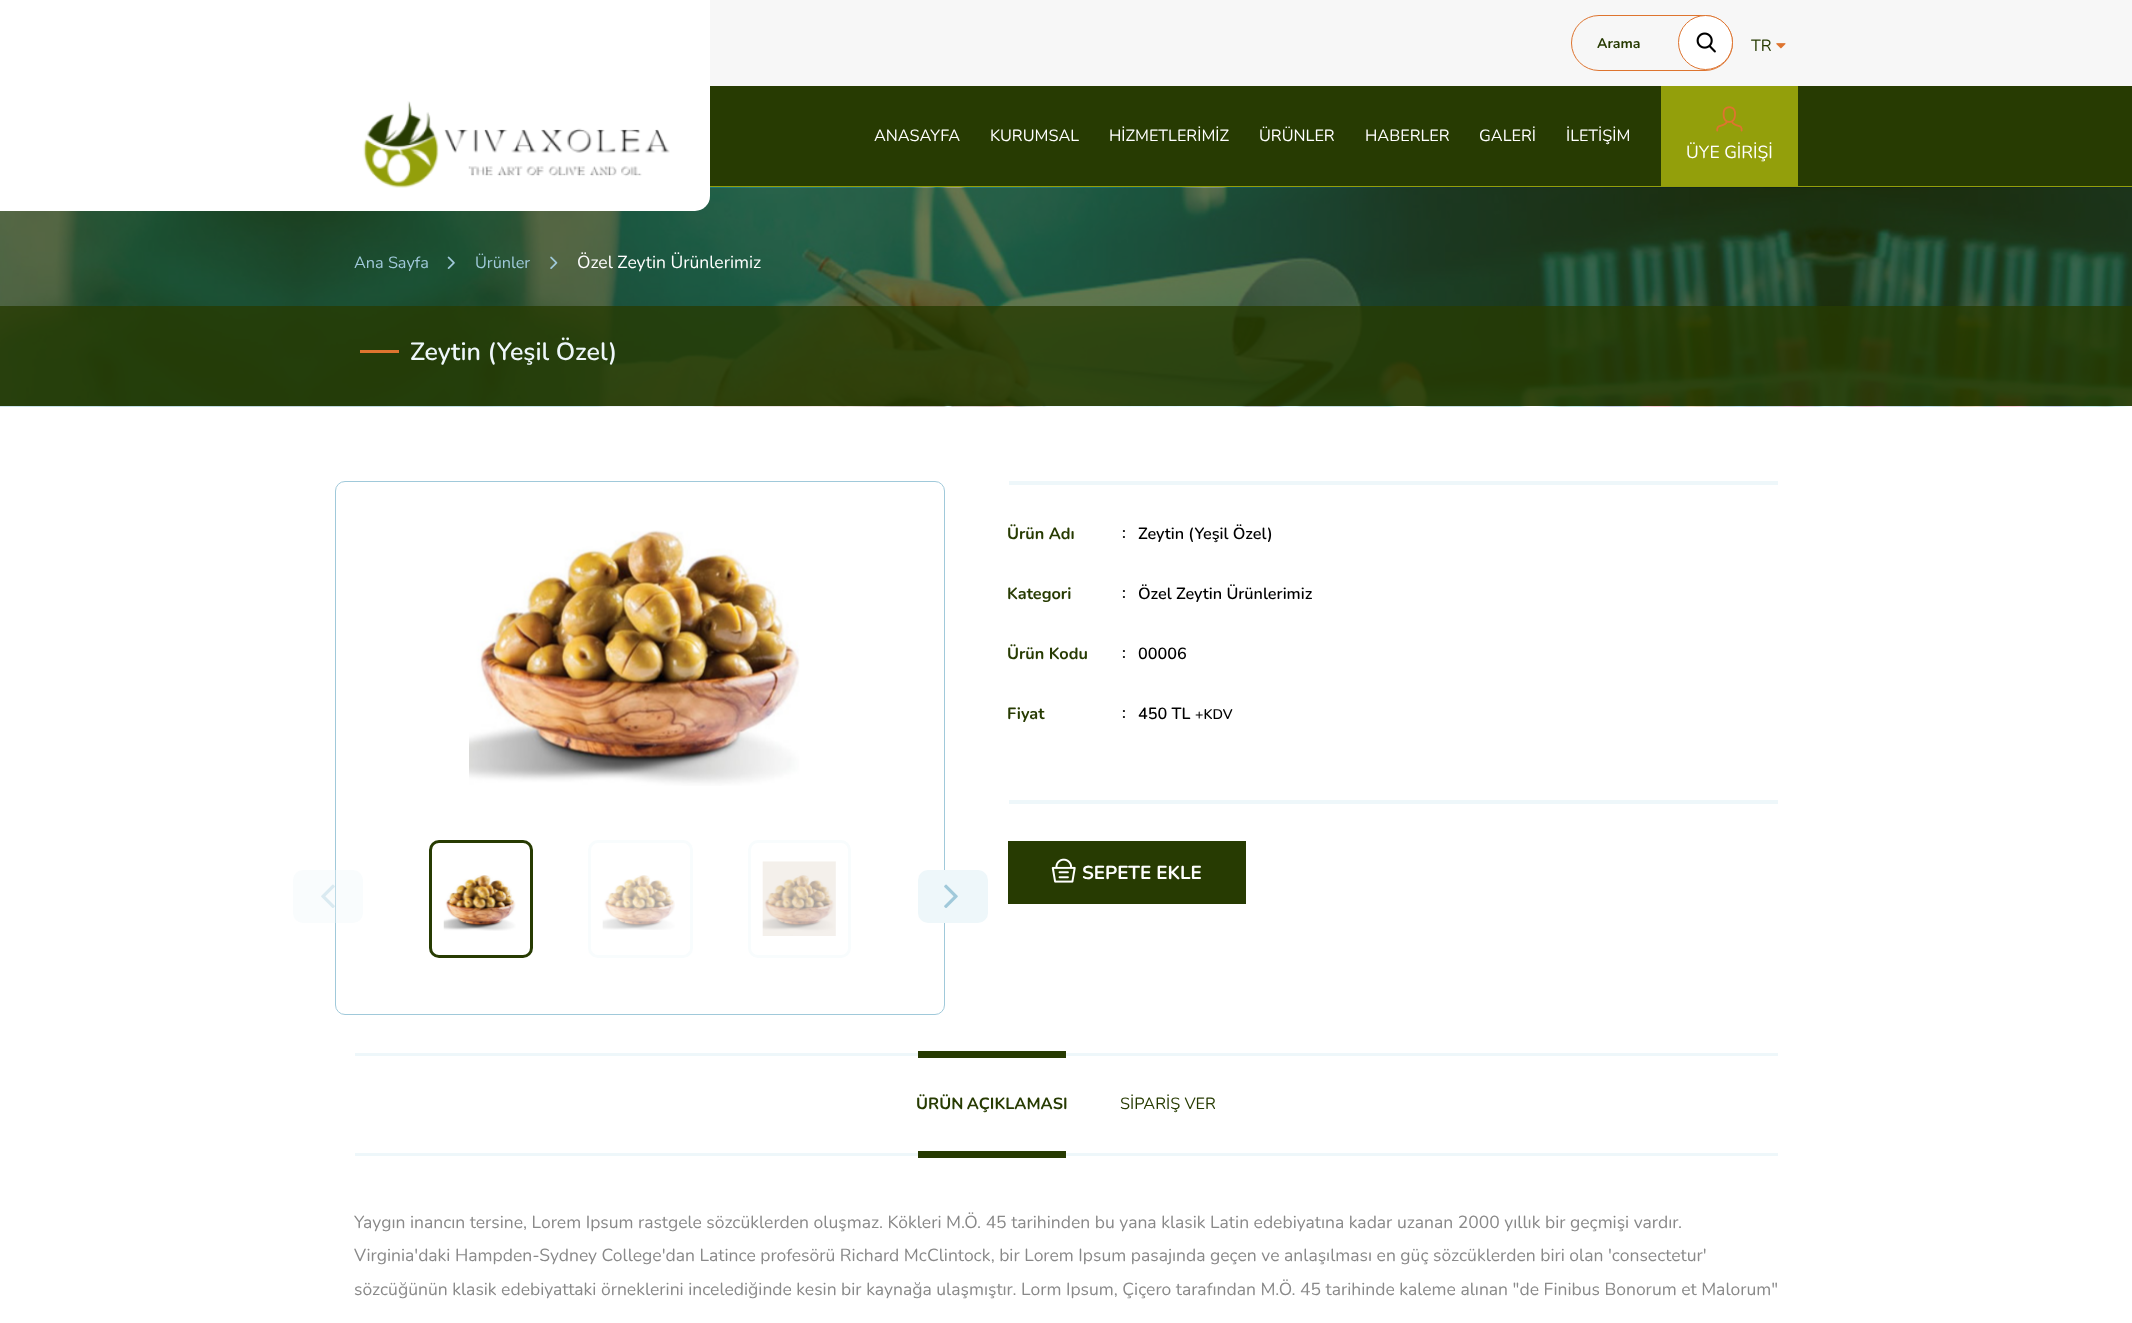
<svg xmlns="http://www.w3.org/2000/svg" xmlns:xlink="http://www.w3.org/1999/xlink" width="2132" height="1323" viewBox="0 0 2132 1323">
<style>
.cls-1{font:bold 14px Nunito;fill:#273b02}
.cls-2{font:16.25px Nunito;fill:#273b02}
.cls-3{font:16.25px Nunito;fill:#ffffff}
.cls-4{font:17.5px Nunito;fill:#ffffff}
.cls-5{font:16.25px Nunito;fill:#a0c9da}
.cls-6{font:600 25px Nunito;fill:#eef7fa}
.cls-7{font:bold 16.25px Nunito;fill:#273b02}
.cls-8{font:600 16.25px Nunito;fill:#000000}
.cls-9{font:600 14px Nunito;fill:#000000}
.cls-10{font:bold 18.75px Nunito;fill:#ffffff}
.cls-11{font:17.5px Nunito;fill:#898989}
</style>
<rect width="100%" height="100%" fill="#ffffff"/>
<rect fill="#f7f7f7" x="710" y="0" width="1422" height="86"/>
<rect fill="none" stroke="#de742f" x="1571.5" y="15.5" width="161" height="55" rx="27.5"/>
<circle fill="#ffffff" stroke="#de742f" cx="1705.5" cy="42.5" r="27"/>
<image xlink:href="image0.png" x="1696" y="32" width="20" height="21"/>
<image xlink:href="image1.png" x="1776" y="43" width="10" height="6"/>
<rect fill="#273b02" x="710" y="86" width="1422" height="102"/>
<rect fill="#939f0b" x="710" y="186" width="1422" height="1"/>
<image xlink:href="image4.png" x="0" y="187" width="2132" height="220"/>
<rect fill="#ffffff" x="-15" y="-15" width="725" height="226" rx="15"/>
<image xlink:href="image2.png" x="363" y="101" width="307" height="87"/>
<rect fill="#939f0b" x="1661" y="86" width="137" height="100"/>
<image xlink:href="image3.png" x="1716" y="106" width="27" height="26"/>
<image xlink:href="image5.png" x="447" y="256" width="8" height="13"/>
<image xlink:href="image6.png" x="550" y="256" width="8" height="13"/>
<rect fill="#273b02" fill-opacity="0.8" x="0" y="306" width="2132" height="100"/>
<rect fill="#de742f" x="360" y="350" width="39" height="3"/>
<rect fill="none" stroke="#a0c9da" x="335.5" y="481.5" width="609" height="533" rx="9.5"/>
<image xlink:href="image7.png" x="469" y="530" width="331" height="256"/>
<rect fill="none" stroke="#273b02" stroke-width="3" x="430.5" y="841.5" width="101" height="115" rx="8.5"/>
<image xlink:href="image8.png" x="443" y="875" width="73" height="56"/>
<rect fill="none" stroke="#f8fcfd" stroke-width="3" x="589.5" y="841.5" width="102" height="115" rx="8.5"/>
<image xlink:href="image9.png" x="602" y="875" width="73" height="55"/>
<rect fill="none" stroke="#f8fcfd" stroke-width="3" x="749.5" y="841.5" width="100" height="115" rx="8.5"/>
<image xlink:href="image10.png" x="762" y="861" width="74" height="75"/>
<rect fill="#eef7fa" fill-opacity="0.35" x="293" y="870" width="70" height="53" rx="10"/>
<image xlink:href="image11.png" x="321" y="884" width="14" height="24"/>
<rect fill="#eef7fa" x="918" y="870" width="70" height="53" rx="10"/>
<image xlink:href="image12.png" x="944" y="884" width="14" height="24"/>
<rect fill="#eef7fa" x="1009" y="481" width="769" height="4"/>
<rect fill="#eef7fa" x="1009" y="800" width="769" height="4"/>
<rect fill="#273b02" x="1008" y="841" width="238" height="63"/>
<image xlink:href="image13.png" x="1051" y="858" width="25" height="25"/>
<rect fill="#eef7fa" x="355" y="1053" width="1423" height="3"/>
<rect fill="#eef7fa" x="355" y="1153" width="1423" height="3"/>
<rect fill="#273b02" x="918" y="1051" width="148" height="7"/>
<rect fill="#273b02" x="918" y="1151" width="148" height="7"/>
<text class="cls-1" x="1597" y="48">Arama</text>
<text class="cls-2" x="1751" y="51">TR</text>
<text class="cls-3" x="874" y="141">ANASAYFA</text>
<text class="cls-3" x="990" y="141">KURUMSAL</text>
<text class="cls-3" x="1109" y="141">HİZMETLERİMİZ</text>
<text class="cls-3" x="1259" y="141">ÜRÜNLER</text>
<text class="cls-3" x="1365" y="141">HABERLER</text>
<text class="cls-3" x="1479" y="141">GALERİ</text>
<text class="cls-3" x="1566" y="141">İLETİŞİM</text>
<text class="cls-4" x="1686" y="158">ÜYE GİRİŞİ</text>
<text class="cls-5" x="354" y="268">Ana Sayfa</text>
<text class="cls-5" x="475" y="268">Ürünler</text>
<text class="cls-4" x="577" y="268">Özel Zeytin Ürünlerimiz</text>
<text class="cls-6" x="410" y="360">Zeytin (Yeşil Özel)</text>
<text class="cls-7" x="1007" y="539">Ürün Adı</text>
<text class="cls-8" x="1122" y="538">:</text>
<text class="cls-8" x="1138" y="539">Zeytin (Yeşil Özel)</text>
<text class="cls-7" x="1007" y="599">Kategori</text>
<text class="cls-8" x="1122" y="598">:</text>
<text class="cls-8" x="1138" y="599">Özel Zeytin Ürünlerimiz</text>
<text class="cls-7" x="1007" y="659">Ürün Kodu</text>
<text class="cls-8" x="1122" y="658">:</text>
<text class="cls-8" x="1138" y="659">00006</text>
<text class="cls-7" x="1007" y="719">Fiyat</text>
<text class="cls-8" x="1122" y="718">:</text>
<text class="cls-8" x="1138" y="719">450 TL</text>
<text class="cls-9" x="1195" y="719">+KDV</text>
<text class="cls-10" x="1082" y="879">SEPETE EKLE</text>
<text class="cls-7" x="916" y="1109" word-spacing="-1">ÜRÜN AÇIKLAMASI</text>
<text class="cls-2" x="1120" y="1109">SİPARİŞ VER</text>
<text class="cls-11"><tspan x="354" y="1228">Yaygın inancın tersine, Lorem Ipsum rastgele sözcüklerden oluşmaz. Kökleri M.Ö. 45 tarihinden bu yana klasik Latin edebiyatına kadar uzanan 2000 yıllık bir geçmişi vardır.</tspan><tspan x="354" y="1261">Virginia'daki Hampden-Sydney College'dan Latince profesörü Richard McClintock, bir Lorem Ipsum pasajında geçen ve anlaşılması en güç sözcüklerden biri olan 'consectetur'</tspan><tspan x="354" y="1295">sözcüğünün klasik edebiyattaki örneklerini incelediğinde kesin bir kaynağa ulaşmıştır. Lorm Ipsum, Çiçero tarafından M.Ö. 45 tarihinde kaleme alınan "de Finibus Bonorum et Malorum"</tspan></text>
</svg>
